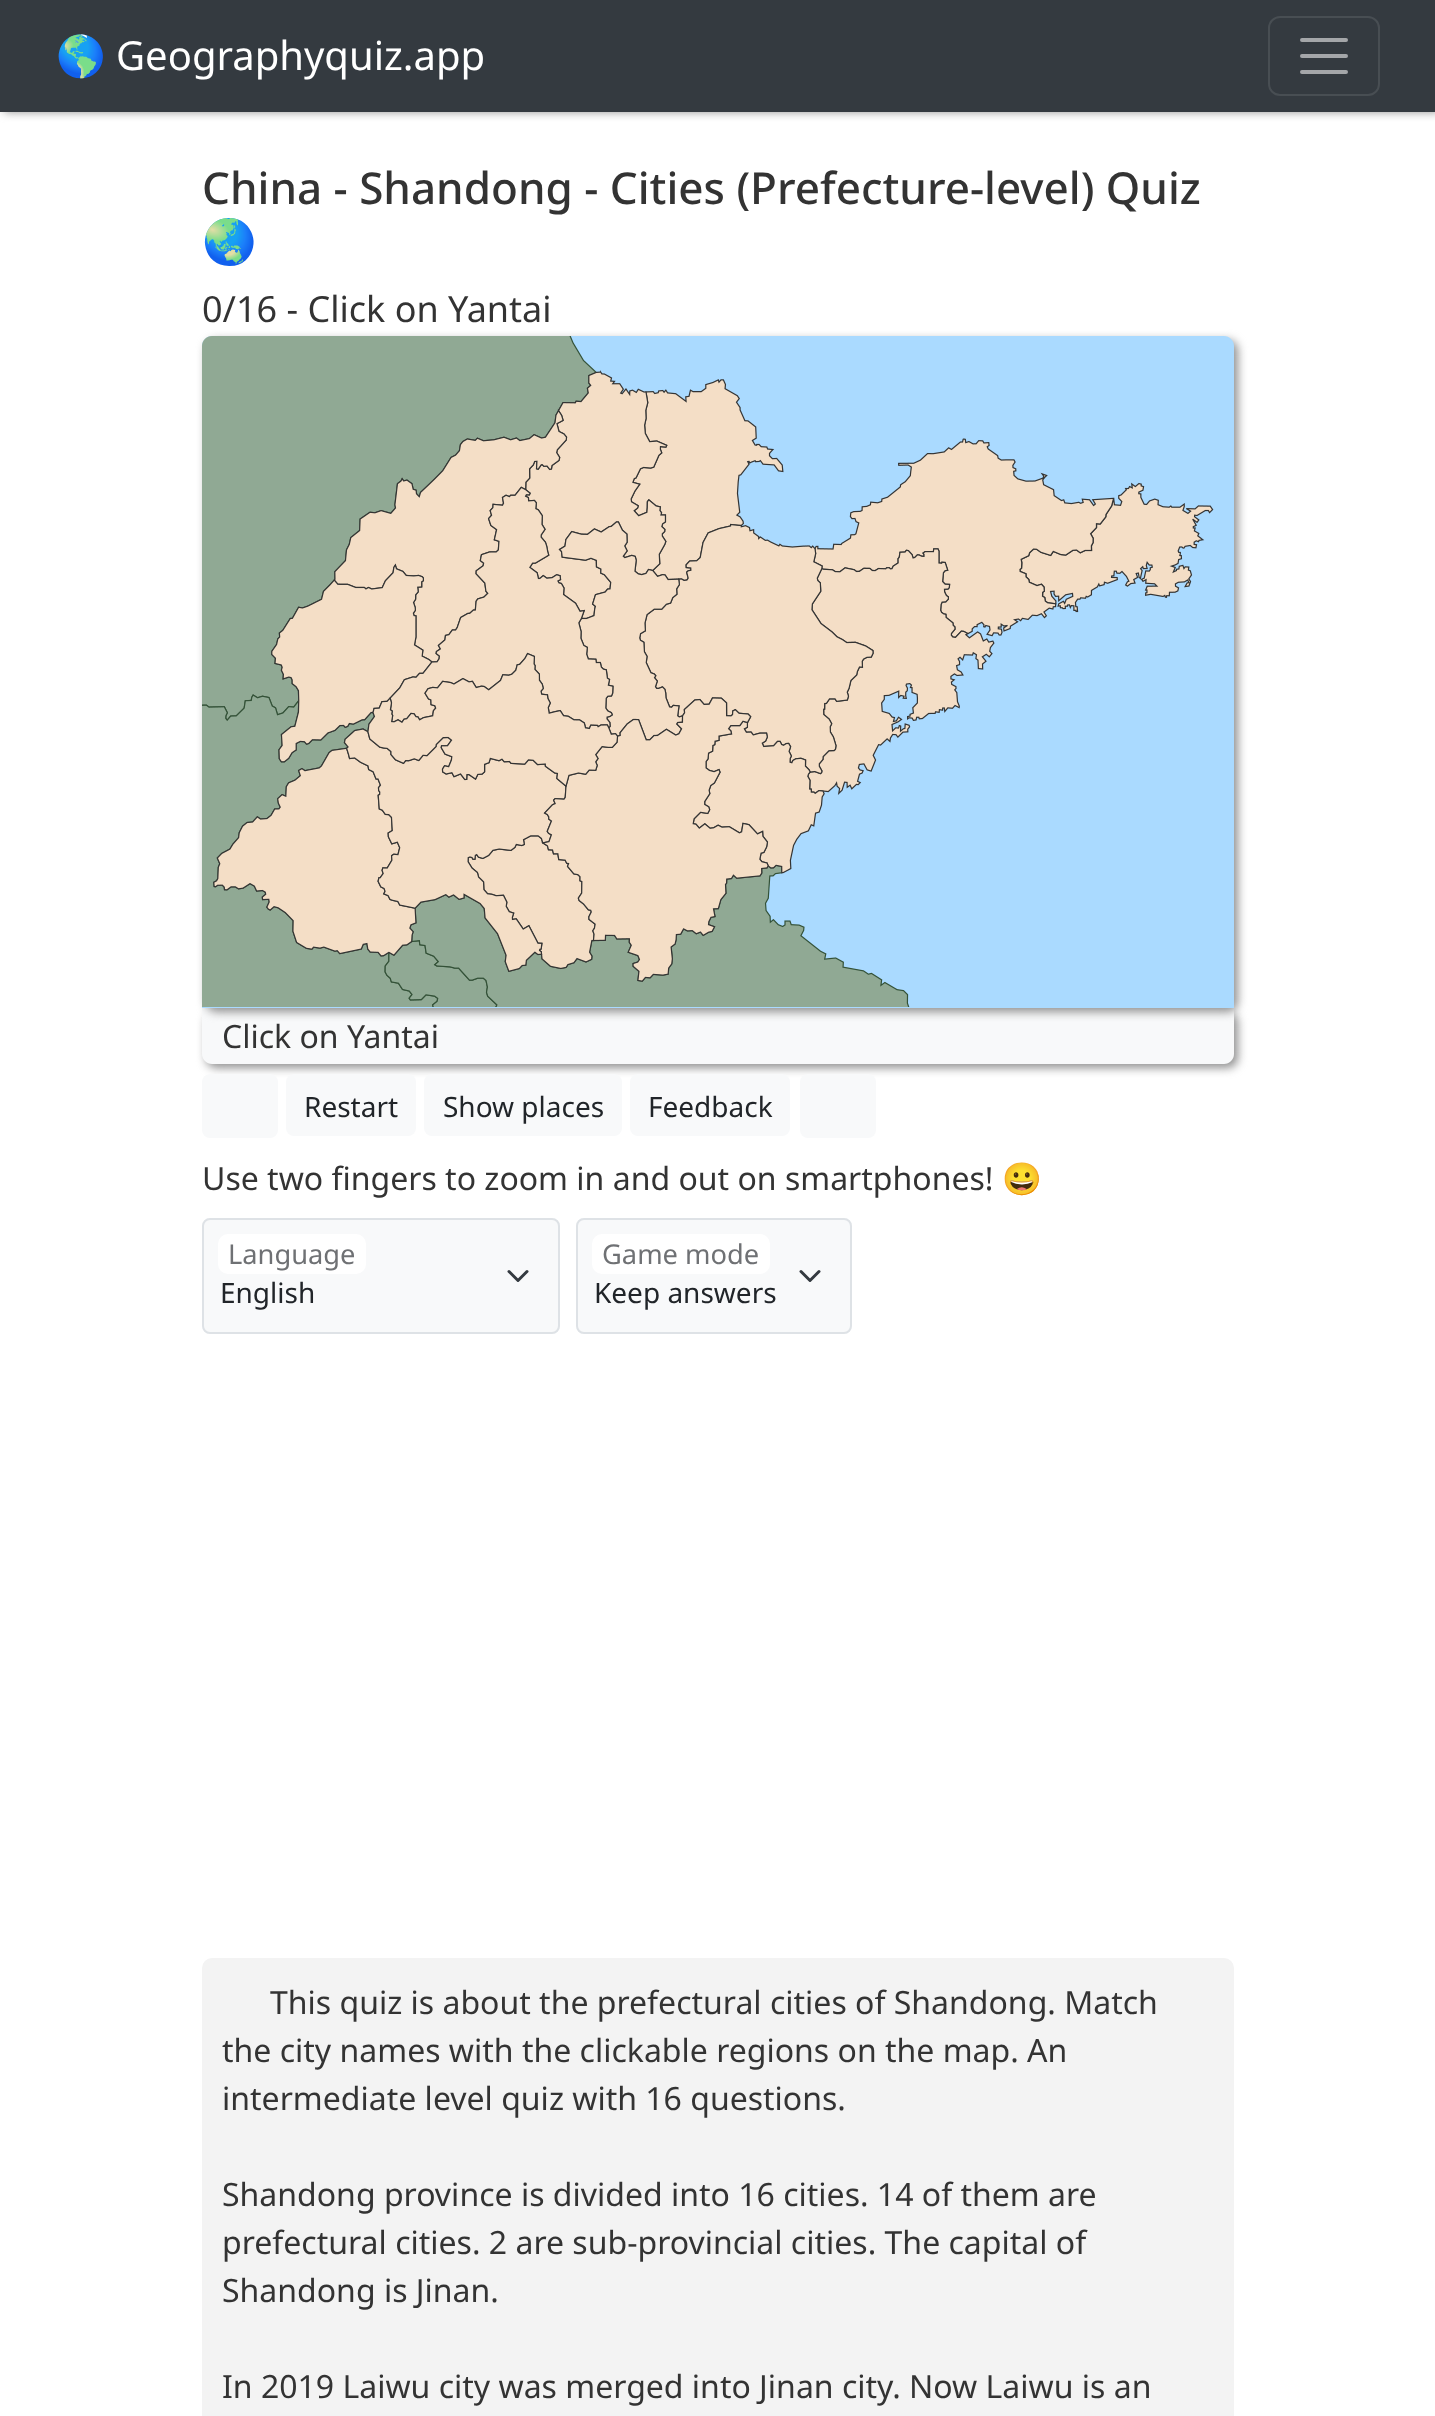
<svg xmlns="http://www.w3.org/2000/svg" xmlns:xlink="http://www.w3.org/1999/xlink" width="1435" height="2416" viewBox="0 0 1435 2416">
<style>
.cls-1{font:40px Noto Color Emoji;fill:#ffffff}
.cls-2{font:40px Noto Sans;fill:#ffffff}
.cls-3{font:500 44px Noto Sans;fill:#333333}
.cls-4{font:44px Noto Color Emoji;fill:#333333}
.cls-5{font:36px Noto Sans;fill:#333333}
.cls-6{font:32px Noto Sans;fill:#333333}
.cls-7{font:28px Noto Sans;fill:#212529}
.cls-8{font:32px Noto Color Emoji;fill:#333333}
.cls-9{font:27.25px Noto Sans;fill:#6f7174}
</style>
<rect width="100%" height="100%" fill="#ffffff"/>
<rect fill="#919191" filter="blur(5px)" x="4" y="0" width="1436" height="112"/>
<rect fill="#343a40" x="0" y="0" width="1435" height="112"/>
<rect fill="none" stroke="#484e53" stroke-width="2" x="1269" y="17" width="110" height="78" rx="11"/>
<path fill="none" stroke="#a4a6a9" stroke-width="4" stroke-linecap="round" d="M1302 40H1346M1302 56H1346M1302 72H1346"/>
<rect fill="#919191" filter="blur(5px)" x="206" y="1012" width="1032" height="56" rx="10"/>
<path fill="#f8f9fa" d="M202 1008H1234V1054C1234 1059.5 1229.5 1064 1224 1064H212C206.5 1064 202 1059.5 202 1054Z"/>
<rect fill="#919191" filter="blur(5px)" x="206" y="340" width="1032" height="672" rx="10"/>
<path fill="#aadaff" d="M212 336H1224C1229.5 336 1234 340.5 1234 346V1008H202V346C202 340.5 206.5 336 212 336Z"/>
<image xlink:href="image0.png" x="202" y="336" width="1012" height="671"/>
<rect fill="#f8f9fa" x="202" y="1074" width="76" height="64" rx="8"/>
<rect fill="#f8f9fa" x="286" y="1074" width="130" height="62" rx="8"/>
<rect fill="#f8f9fa" x="424" y="1074" width="198" height="62" rx="8"/>
<rect fill="#f8f9fa" x="630" y="1074" width="160" height="62" rx="8"/>
<rect fill="#f8f9fa" x="800" y="1074" width="76" height="64" rx="8"/>
<rect fill="#f8f9fa" x="202" y="1218" width="358" height="116" rx="8"/>
<path fill="none" stroke="#343a40" stroke-width="3" stroke-linecap="round" stroke-linejoin="round" d="M509 1271.5L518 1280.5L527 1271.5"/>
<rect fill="none" stroke="#dee2e6" stroke-width="2" x="203" y="1219" width="356" height="114" rx="7"/>
<rect fill="#ffffff" x="218" y="1234" width="148" height="40" rx="10"/>
<rect fill="#f8f9fa" x="576" y="1218" width="276" height="116" rx="8"/>
<path fill="none" stroke="#343a40" stroke-width="3" stroke-linecap="round" stroke-linejoin="round" d="M801 1271.5L810 1280.5L819 1271.5"/>
<rect fill="none" stroke="#dee2e6" stroke-width="2" x="577" y="1219" width="274" height="114" rx="7"/>
<rect fill="#ffffff" x="592" y="1234" width="178" height="40" rx="10"/>
<rect fill="#f3f3f3" x="202" y="1958" width="1032" height="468" rx="10"/>
<text class="cls-1" x="56" y="70">🌎</text>
<text class="cls-2" x="116" y="70">Geographyquiz.app</text>
<text class="cls-3" x="202" y="204">China - Shandong - Cities (Prefecture-level) Quiz</text>
<text class="cls-4" x="202" y="257">🌏</text>
<text class="cls-5" x="202" y="322">0/16 - Click on Yantai</text>
<text class="cls-6" x="222" y="1048">Click on Yantai</text>
<text class="cls-7" x="304" y="1117">Restart</text>
<text class="cls-7" x="443" y="1117">Show places</text>
<text class="cls-7" x="648" y="1117">Feedback</text>
<text class="cls-6" x="202" y="1190">Use two fingers to zoom in and out on smartphones!</text>
<text class="cls-8" x="1002" y="1190">😀</text>
<text class="cls-9" x="228" y="1264">Language</text>
<text class="cls-7" x="220" y="1303">English</text>
<text class="cls-9" x="602" y="1264">Game mode</text>
<text class="cls-7" x="594" y="1303">Keep answers</text>
<text class="cls-6" x="270" y="2014">This quiz is about the prefectural cities of Shandong. Match</text>
<text class="cls-6"><tspan x="222" y="2062">the city names with the clickable regions on the map. An</tspan><tspan x="222" y="2110">intermediate level quiz with 16 questions.</tspan></text>
<text class="cls-6"><tspan x="222" y="2206">Shandong province is divided into 16 cities. 14 of them are</tspan><tspan x="222" y="2254">prefectural cities. 2 are sub-provincial cities. The capital of</tspan><tspan x="222" y="2302">Shandong is Jinan.</tspan></text>
<text class="cls-6" x="222" y="2398">In 2019 Laiwu city was merged into Jinan city. Now Laiwu is an</text>
</svg>
